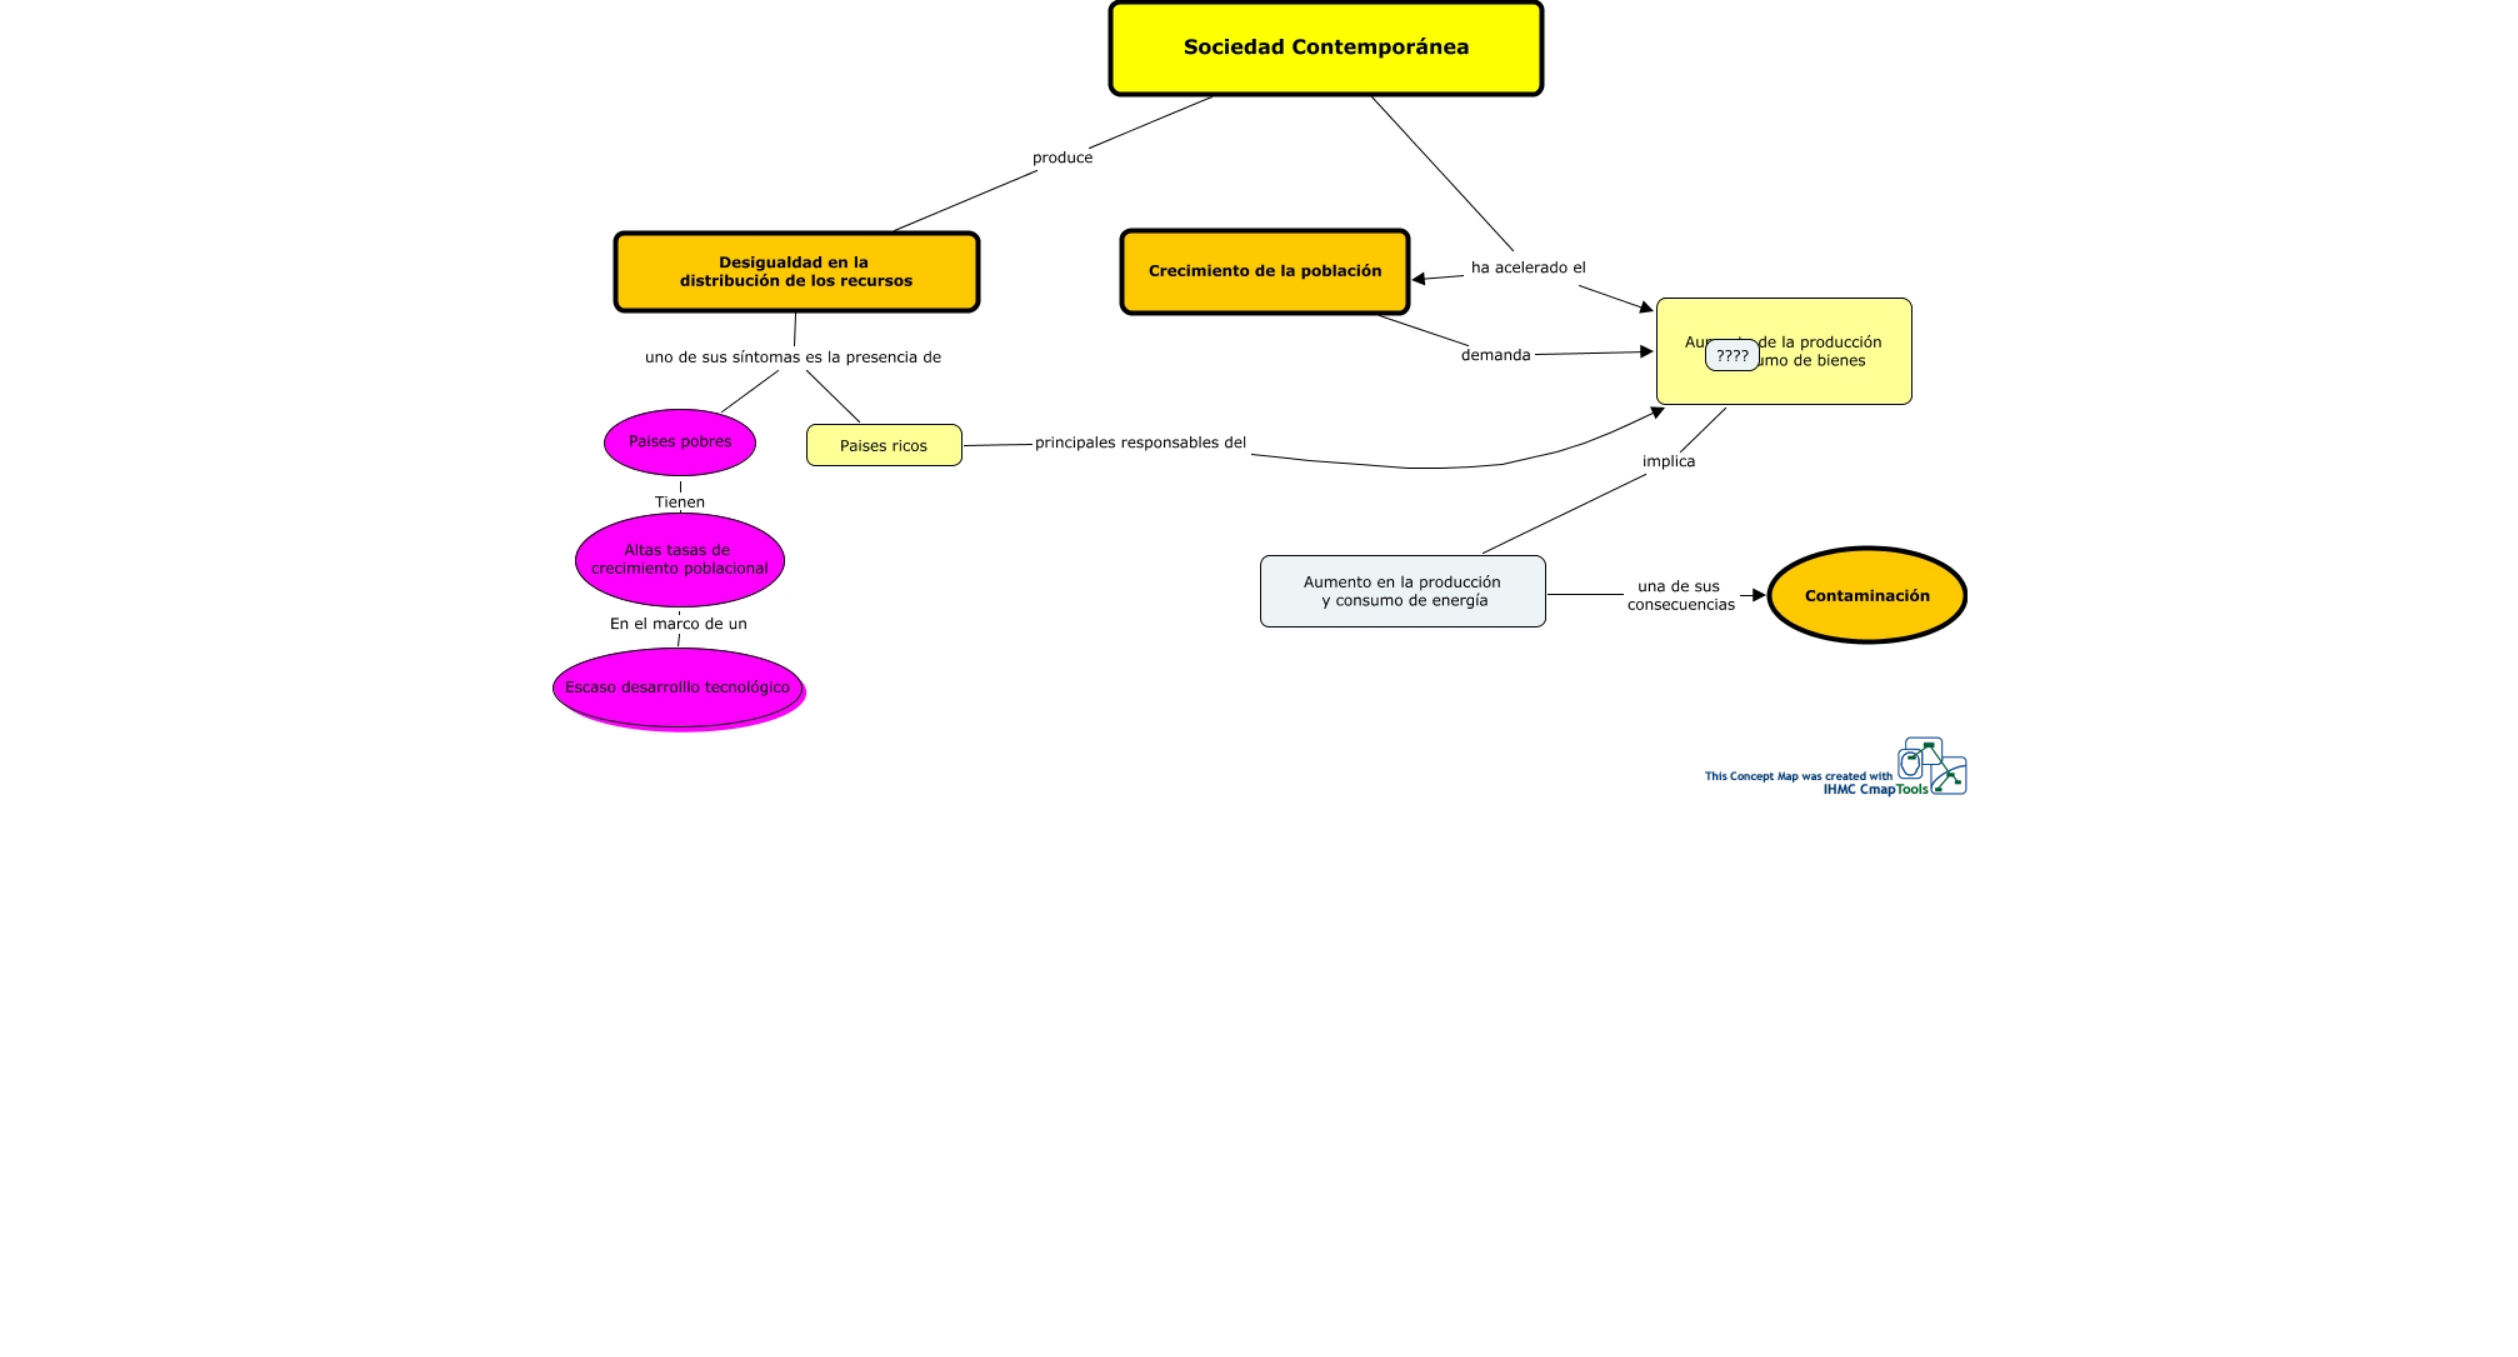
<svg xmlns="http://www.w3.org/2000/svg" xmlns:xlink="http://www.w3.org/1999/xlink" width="2518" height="1357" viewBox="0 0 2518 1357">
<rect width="100%" height="100%" fill="#ffffff"/>
<image xlink:href="image0.png" x="552" y="0" width="1416" height="734"/>
<image xlink:href="image1.png" x="1705" y="736" width="263" height="62"/>
</svg>
